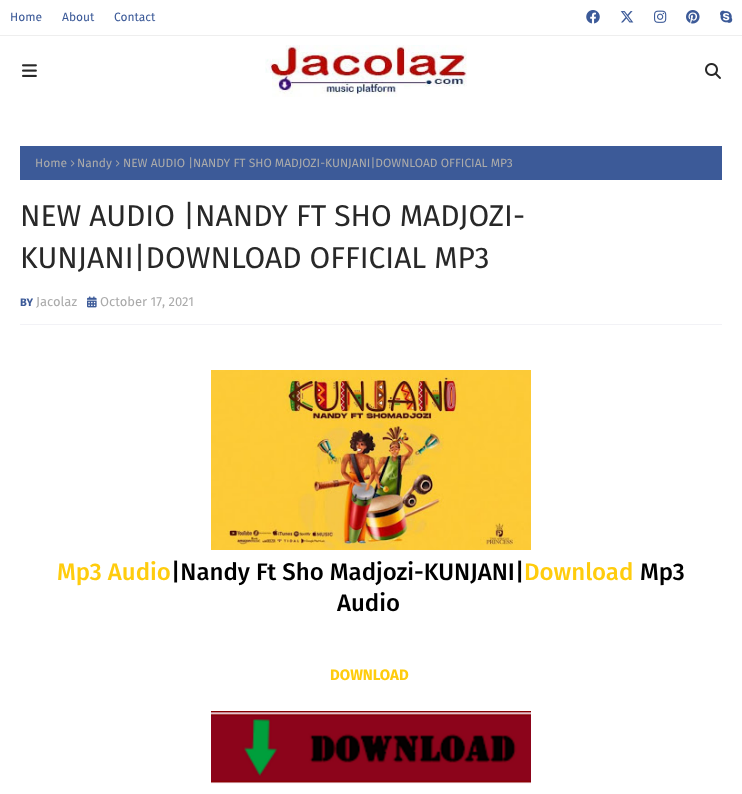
<svg xmlns="http://www.w3.org/2000/svg" xmlns:xlink="http://www.w3.org/1999/xlink" width="742" height="794" viewBox="0 0 742 794">
<style>
.cls-1{font:12px Fira Sans;fill:#3c5a98}
.cls-2{font:12px Fira Sans;fill:#aaaaaa}
.cls-3{font:30px Fira Sans;fill:#282828}
.cls-4{font:bold 11px Fira Sans;fill:#3c5a98}
.cls-5{font:13px Fira Sans;fill:#aaaaaa}
.cls-6{font:500 24px Fira Sans;fill:#ffcc0d}
.cls-7{font:500 24px Fira Sans;fill:#000000}
.cls-8{font:bold 15px Fira Sans;fill:#ffcc0d}
</style>
<rect width="100%" height="100%" fill="#ffffff"/>
<rect fill="#eeeeee" x="0" y="35" width="742" height="1"/>
<image xlink:href="image0.png" x="586" y="10" width="14" height="14"/>
<image xlink:href="image1.png" x="620" y="11" width="14" height="12"/>
<image xlink:href="image2.png" x="654" y="10" width="13" height="13"/>
<image xlink:href="image3.png" x="686" y="10" width="14" height="14"/>
<image xlink:href="image4.png" x="720" y="10" width="13" height="13"/>
<image xlink:href="image5.png" x="22" y="64" width="15" height="13"/>
<image xlink:href="image6.png" x="265" y="45" width="202" height="52"/>
<image xlink:href="image7.png" x="705" y="63" width="16" height="16"/>
<rect fill="#3c5a98" x="20" y="146" width="702" height="34"/>
<image xlink:href="image8.png" x="70" y="160" width="5" height="7"/>
<image xlink:href="image8.png" x="115" y="160" width="5" height="7"/>
<image xlink:href="image9.png" x="87" y="296" width="10" height="12"/>
<rect fill="#f2f2f6" x="20" y="324" width="702" height="1"/>
<image xlink:href="image10.png" x="211" y="370" width="320" height="180"/>
<image xlink:href="image11.png" x="211" y="711" width="320" height="73"/>
<text class="cls-1" x="10" y="21">Home</text>
<text class="cls-1" x="62" y="21">About</text>
<text class="cls-1" x="114" y="21">Contact</text>
<text class="cls-2" x="35" y="167">Home</text>
<text class="cls-2" x="77" y="167">Nandy</text>
<text class="cls-2" x="123" y="167">NEW AUDIO |NANDY FT SHO MADJOZI-KUNJANI|DOWNLOAD OFFICIAL MP3</text>
<text class="cls-3"><tspan x="20" y="226">NEW AUDIO |NANDY FT SHO MADJOZI-</tspan><tspan x="20" y="268">KUNJANI|DOWNLOAD OFFICIAL MP3</tspan></text>
<text class="cls-4" x="20" y="306">BY</text>
<text class="cls-5" x="36" y="306">Jacolaz</text>
<text class="cls-5" x="100" y="306">October 17, 2021</text>
<text class="cls-6" x="57" y="580">Mp3 Audio</text>
<text class="cls-7" x="171" y="580">|Nandy Ft Sho Madjozi-KUNJANI|</text>
<text class="cls-6" x="524" y="580">Download</text>
<text class="cls-7" x="640" y="580">Mp3</text>
<text class="cls-7" x="337" y="611">Audio</text>
<text class="cls-8" x="330" y="680">DOWNLOAD</text>
</svg>
